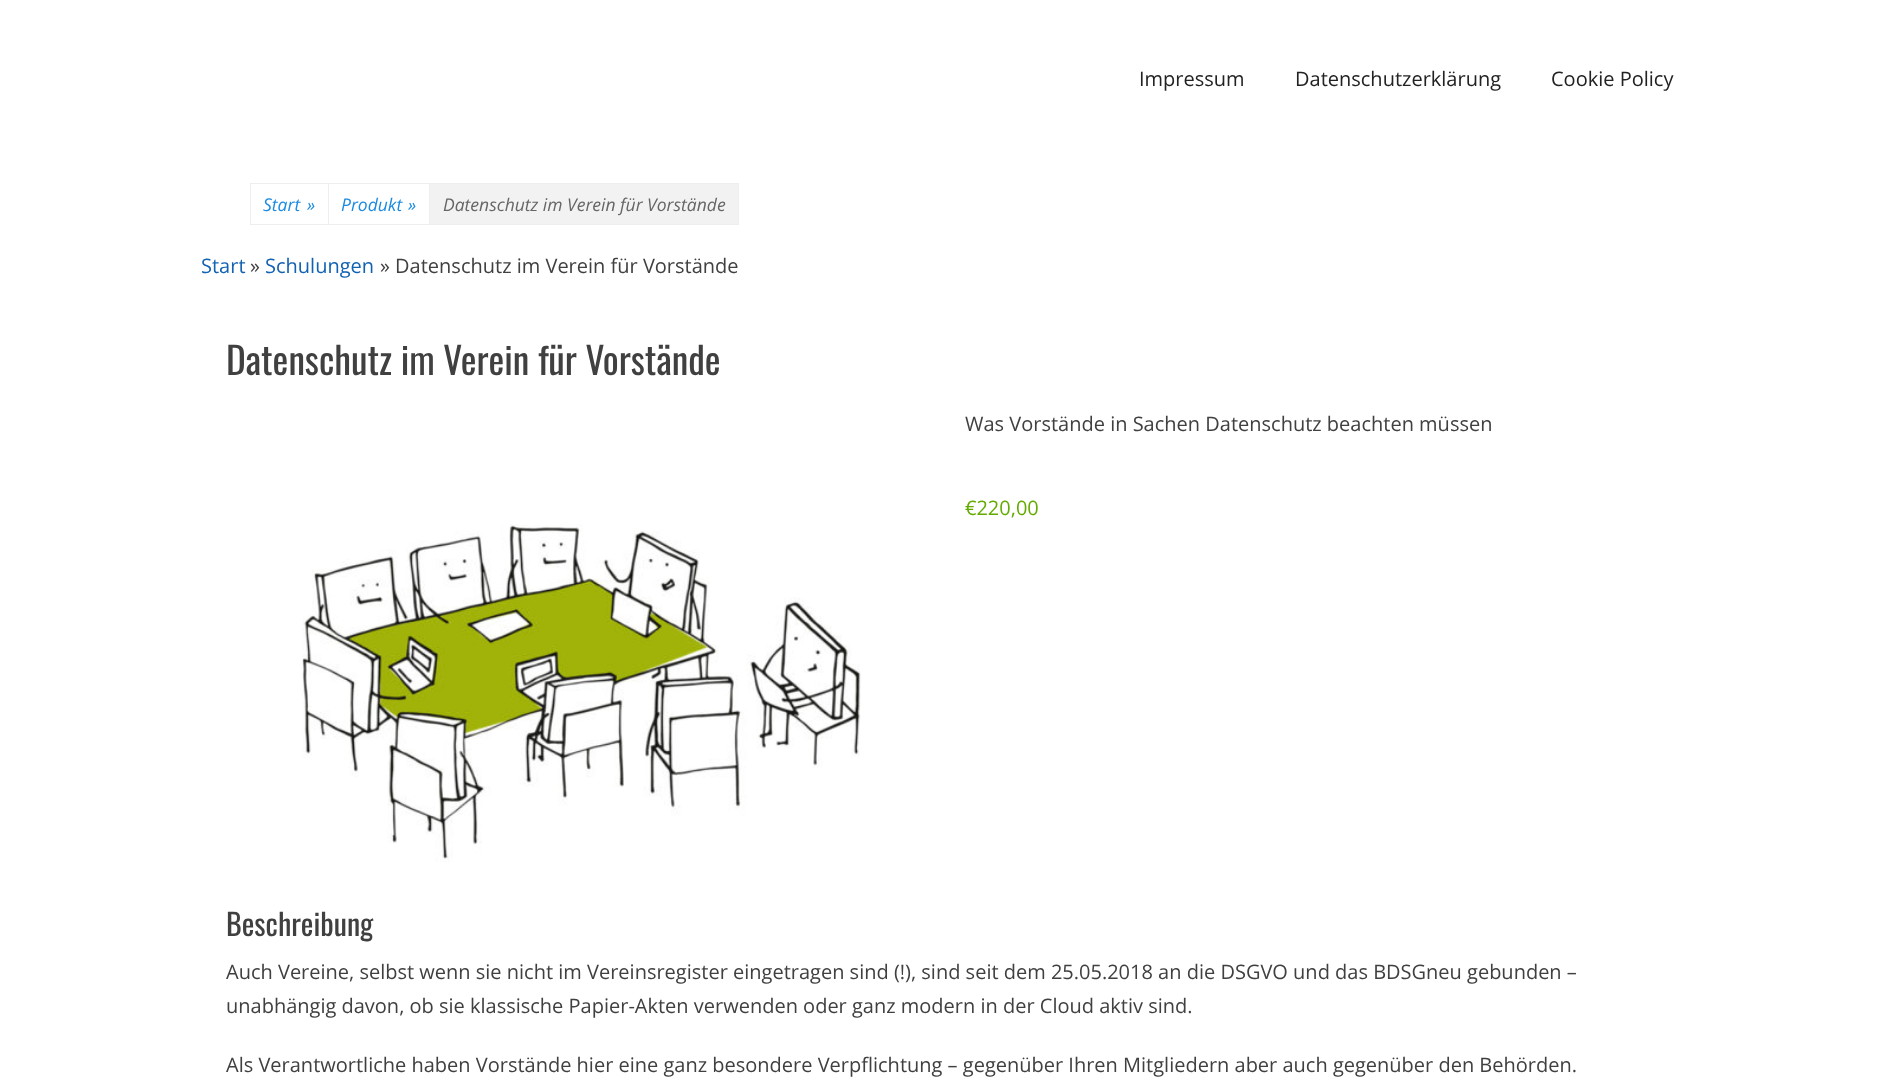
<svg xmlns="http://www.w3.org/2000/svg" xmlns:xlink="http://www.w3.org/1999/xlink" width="1901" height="1085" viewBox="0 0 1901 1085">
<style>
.cls-1{font:20px Open Sans;fill:#222222}
.cls-2{font:italic 17.5px Open Sans;fill:#1b8be0}
.cls-3{font:italic 17.5px Open Sans;fill:#666666}
.cls-4{font:20px Open Sans;fill:#1262b3}
.cls-5{font:20px Open Sans;fill:#404040}
.cls-6{font:37.5px Oswald;fill:#404040}
.cls-7{font:20px Open Sans;fill:#63ab00}
.cls-8{font:30px Oswald;fill:#404040}
</style>
<rect width="100%" height="100%" fill="#ffffff"/>
<rect fill="none" stroke="#eeeeee" x="250.5" y="183.5" width="78" height="41"/>
<rect fill="none" stroke="#eeeeee" x="328.5" y="183.5" width="101" height="41"/>
<rect fill="#f2f2f2" stroke="#eeeeee" x="429.5" y="183.5" width="309" height="41"/>
<image xlink:href="image0.png" x="302" y="524" width="559" height="338"/>
<text class="cls-1" x="1139" y="86">Impressum</text>
<text class="cls-1" x="1295" y="86">Datenschutzerklärung</text>
<text class="cls-1" x="1551" y="86">Cookie Policy</text>
<text class="cls-2" x="263" y="211">Start</text>
<text class="cls-2" x="307" y="211">»</text>
<text class="cls-2" x="341" y="211">Produkt</text>
<text class="cls-2" x="408" y="211">»</text>
<text class="cls-3" x="443" y="211">Datenschutz im Verein für Vorstände</text>
<text class="cls-4" x="201" y="273">Start</text>
<text class="cls-5" x="250" y="273">»</text>
<text class="cls-4" x="265" y="273">Schulungen</text>
<text class="cls-5" x="380" y="273">» Datenschutz im Verein für Vorstände</text>
<text class="cls-6" x="226" y="375">Datenschutz im Verein für Vorstände</text>
<text class="cls-5" x="965" y="431">Was Vorstände in Sachen Datenschutz beachten müssen</text>
<text class="cls-7" x="965" y="515">€220,00</text>
<text class="cls-8" x="226" y="936">Beschreibung</text>
<text class="cls-5"><tspan x="226" y="979">Auch Vereine, selbst wenn sie nicht im Vereinsregister eingetragen sind (!), sind seit dem 25.05.2018 an die DSGVO und das BDSGneu gebunden –</tspan><tspan x="226" y="1013">unabhängig davon, ob sie klassische Papier-Akten verwenden oder ganz modern in der Cloud aktiv sind.</tspan></text>
<text class="cls-5" x="226" y="1072">Als Verantwortliche haben Vorstände hier eine ganz besondere Verpflichtung – gegenüber Ihren Mitgliedern aber auch gegenüber den Behörden.</text>
</svg>
